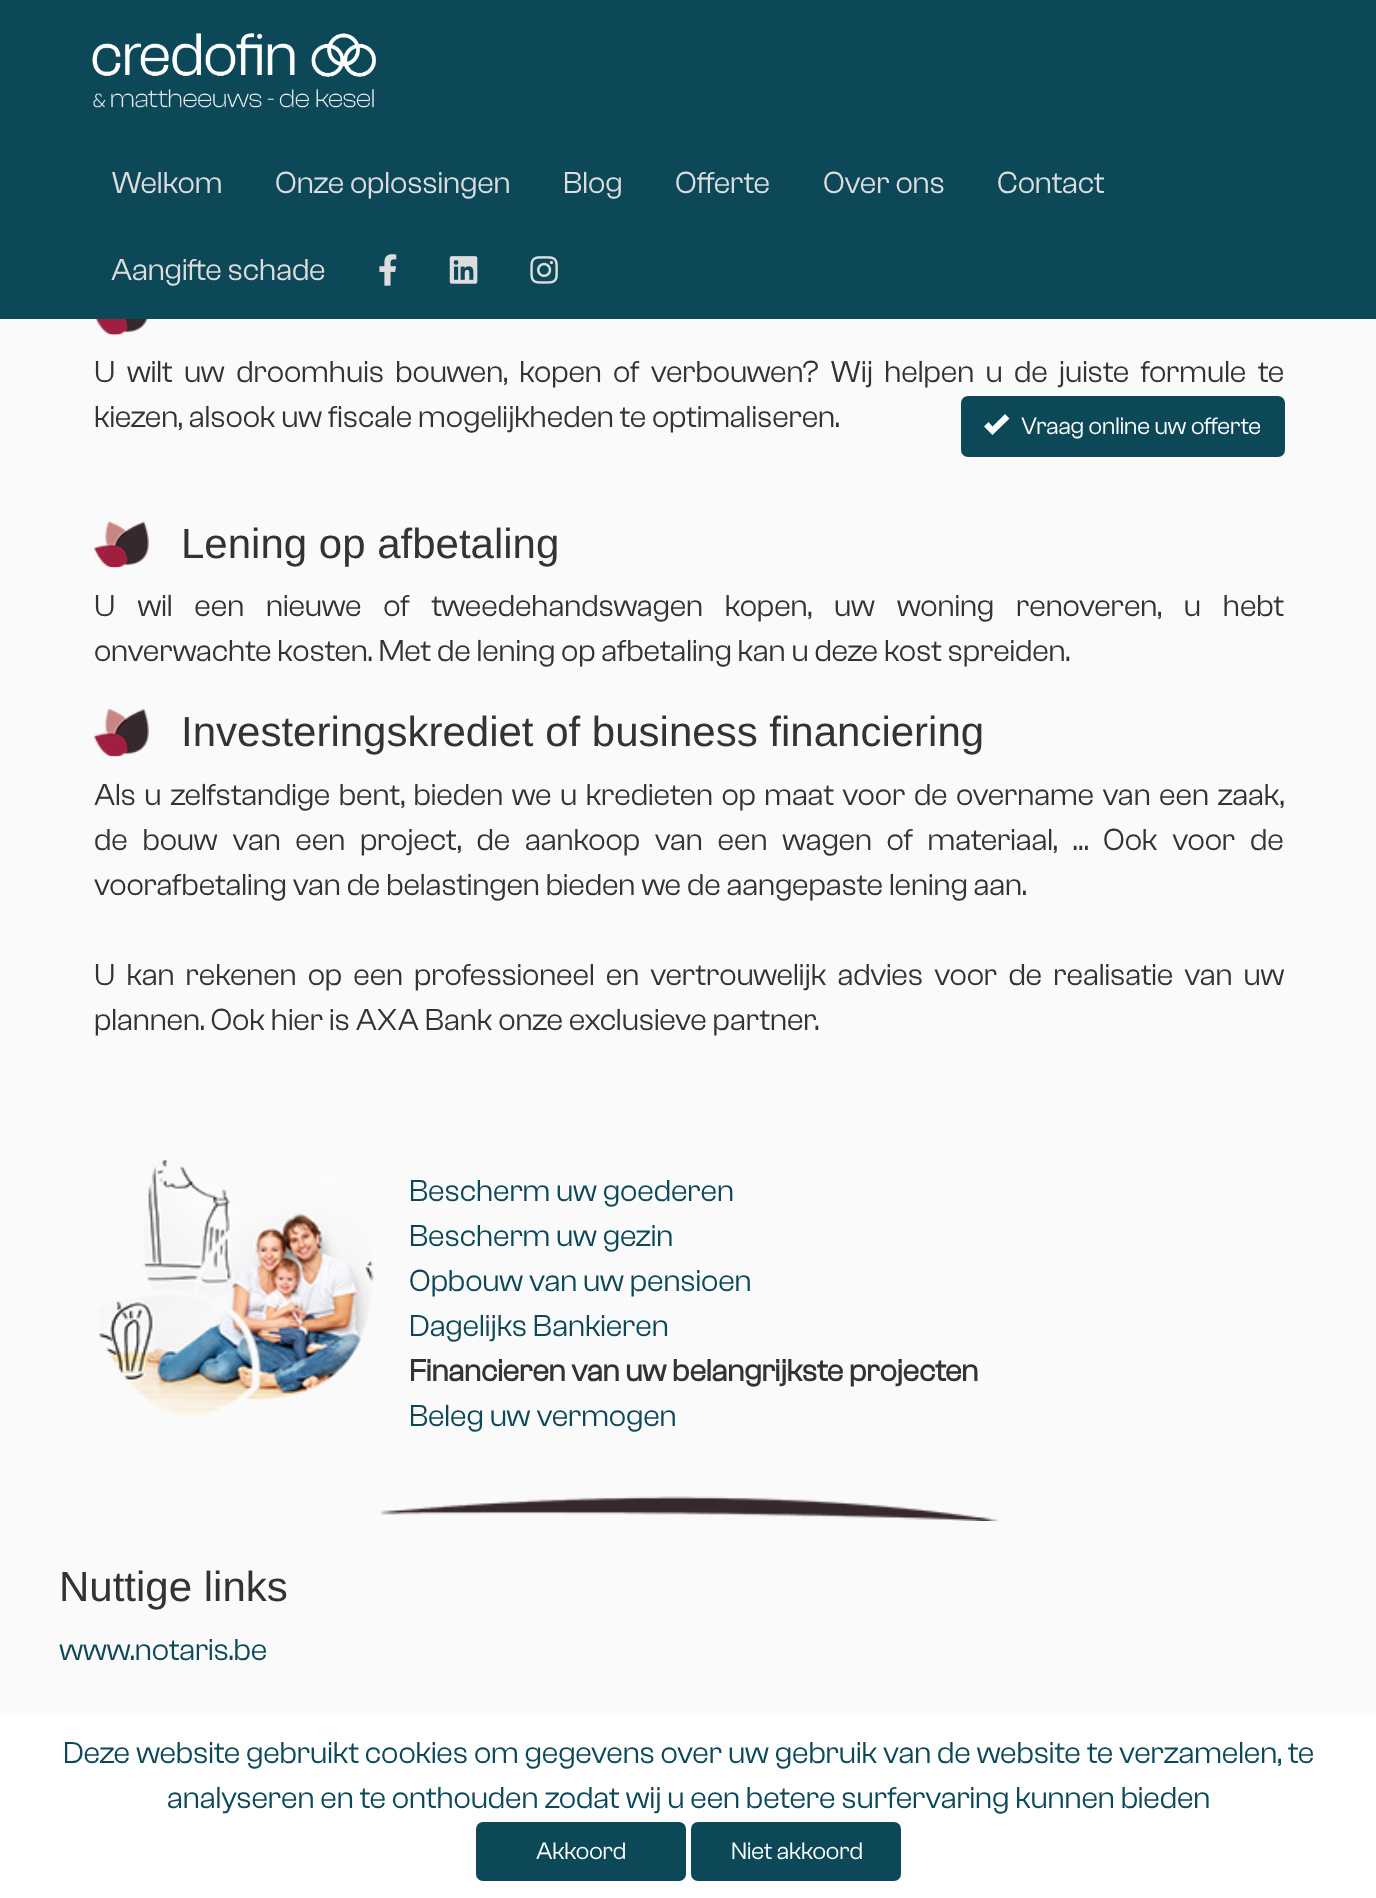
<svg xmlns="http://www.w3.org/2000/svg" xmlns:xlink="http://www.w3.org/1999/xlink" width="1376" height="1898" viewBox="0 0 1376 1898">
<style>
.cls-1{font:31.5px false;fill:#dddddd}
.cls-2{font:31.5px false;fill:#333333}
.cls-3{font:24.5px false;fill:#ffffff}
.cls-4{font:42px Liberation Sans;fill:#333333}
.cls-5{font:31.5px false;fill:#0d4859}
.cls-6{font:bold 31.5px false;fill:#333333}
</style>
<rect width="100%" height="100%" fill="#fafafa"/>
<rect fill="#0d4859" x="0" y="0" width="1376" height="319"/>
<image xlink:href="image0.png" x="92" y="33" width="284" height="75"/>
<image xlink:href="image1.png" x="379" y="254" width="18" height="32"/>
<image xlink:href="image2.png" x="449" y="256" width="29" height="28"/>
<image xlink:href="image3.png" x="530" y="256" width="28" height="28"/>
<image xlink:href="image4.png" x="95" y="319" width="53" height="16"/>
<rect fill="#0d4859" stroke="#0d4859" stroke-width="2" x="962" y="397" width="322" height="59" rx="6"/>
<path fill="#ffffff" d="M992.5 435L1009.5 418.5L1005 414L992.5 426.5L988.5 422L984 426.5Z"/>
<image xlink:href="image5.png" x="94" y="521" width="55" height="47"/>
<image xlink:href="image6.png" x="94" y="709" width="55" height="48"/>
<image xlink:href="image7.png" x="99" y="1159" width="275" height="257"/>
<image xlink:href="image8.png" x="380" y="1496" width="618" height="25"/>
<rect fill="#ffffff" x="0" y="1715" width="1376" height="183"/>
<rect fill="#0d4859" stroke="#0d4859" stroke-width="2" x="477" y="1823" width="208" height="57" rx="6"/>
<rect fill="#0d4859" stroke="#0d4859" stroke-width="2" x="692" y="1823" width="208" height="57" rx="6"/>
<text class="cls-1" x="111" y="193">Welkom</text>
<text class="cls-1" x="275" y="193">Onze oplossingen</text>
<text class="cls-1" x="563" y="193">Blog</text>
<text class="cls-1" x="675" y="193">Offerte</text>
<text class="cls-1" x="823" y="193">Over ons</text>
<text class="cls-1" x="997" y="193">Contact</text>
<text class="cls-1" x="111" y="280">Aangifte schade</text>
<text class="cls-2"><tspan x="94" y="382" word-spacing="5.5">U wilt uw droomhuis bouwen, kopen of verbouwen? Wij helpen u de juiste formule te</tspan><tspan x="94" y="427">kiezen, alsook uw fiscale mogelijkheden te optimaliseren.</tspan></text>
<text class="cls-3" x="1021" y="434">Vraag online uw offerte</text>
<text class="cls-4" x="181" y="558">Lening op afbetaling</text>
<text class="cls-2"><tspan x="94" y="616" word-spacing="16">U wil een nieuwe of tweedehandswagen kopen, uw woning renoveren, u hebt</tspan><tspan x="94" y="661">onverwachte kosten. Met de lening op afbetaling kan u deze kost spreiden.</tspan></text>
<text class="cls-4" x="181" y="746">Investeringskrediet of business financiering</text>
<text class="cls-2"><tspan x="94" y="805" word-spacing="2.6">Als u zelfstandige bent, bieden we u kredieten op maat voor de overname van een zaak,</tspan><tspan x="94" y="850" word-spacing="8.9">de bouw van een project, de aankoop van een wagen of materiaal, …</tspan></text>
<text class="cls-2" x="1103" y="850" word-spacing="8.9">Ook voor de</text>
<text class="cls-2" x="94" y="895">voorafbetaling van de belastingen bieden we de aangepaste lening aan.</text>
<text class="cls-2"><tspan x="94" y="985" word-spacing="5.25">U kan rekenen op een professioneel en vertrouwelijk advies voor de realisatie van uw</tspan><tspan x="94" y="1030">plannen. Ook hier is AXA Bank onze exclusieve partner.</tspan></text>
<text class="cls-5"><tspan x="409" y="1201">Bescherm uw goederen</tspan><tspan x="409" y="1246">Bescherm uw gezin</tspan><tspan x="409" y="1291">Opbouw van uw pensioen</tspan><tspan x="409" y="1336">Dagelijks Bankieren</tspan></text>
<text class="cls-6" x="409" y="1381">Financieren van uw belangrijkste projecten</text>
<text class="cls-5" x="409" y="1426">Beleg uw vermogen</text>
<text class="cls-4" x="59" y="1601">Nuttige links</text>
<text class="cls-5" x="59" y="1660">www.notaris.be</text>
<text class="cls-5" x="63" y="1763">Deze website gebruikt cookies om gegevens over uw gebruik van de website te verzamelen, te</text>
<text class="cls-5" x="167" y="1808">analyseren en te onthouden zodat wij u een betere surfervaring kunnen bieden</text>
<text class="cls-3" x="536" y="1859">Akkoord</text>
<text class="cls-3" x="731" y="1859">Niet akkoord</text>
</svg>
